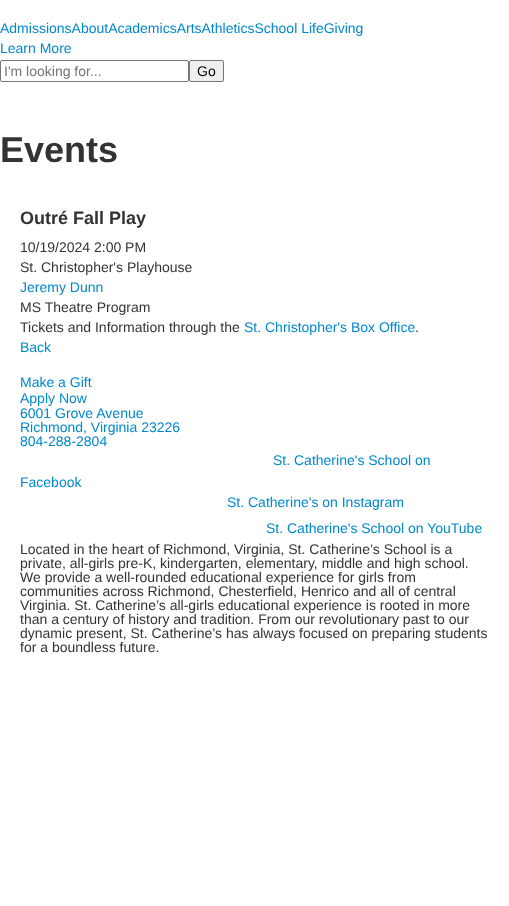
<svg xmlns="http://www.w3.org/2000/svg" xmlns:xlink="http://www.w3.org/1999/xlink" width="509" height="906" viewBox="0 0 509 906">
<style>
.cls-1{font:14px Liberation Sans;fill:#0088cc}
.cls-2{font:14px Liberation Sans;fill:#757575}
.cls-3{font:14px Liberation Sans;fill:#000000}
.cls-4{font:bold 36px Liberation Sans;fill:#333333}
.cls-5{font:bold 18px Liberation Sans;fill:#333333}
.cls-6{font:14px Liberation Sans;fill:#333333}
</style>
<rect width="100%" height="100%" fill="#ffffff"/>
<rect fill="none" stroke="#767676" x="0.5" y="60.5" width="188" height="21" rx="1.5"/>
<rect fill="#efefef" stroke="#767676" x="189.5" y="60.5" width="34" height="21" rx="1.5"/>
<text class="cls-1"><tspan x="0" y="33">AdmissionsAboutAcademicsArtsAthleticsSchool LifeGiving</tspan><tspan x="0" y="53">Learn More</tspan></text>
<text class="cls-2" x="4" y="76">I'm looking for...</text>
<text class="cls-3" x="197" y="76">Go</text>
<text class="cls-4" x="0" y="162">Events</text>
<text class="cls-5" x="20" y="224">Outré Fall Play</text>
<text class="cls-6"><tspan x="20" y="252">10/19/2024 2:00 PM</tspan><tspan x="20" y="272">St. Christopher's Playhouse</tspan></text>
<text class="cls-1" x="20" y="292">Jeremy Dunn</text>
<text class="cls-6"><tspan x="20" y="312">MS Theatre Program</tspan><tspan x="20" y="332">Tickets and Information through the</tspan></text>
<text class="cls-1" x="244" y="332">St. Christopher's Box Office</text>
<text class="cls-6" x="415" y="332">.</text>
<text class="cls-1" x="20" y="352">Back</text>
<text class="cls-1"><tspan x="20" y="387">Make a Gift</tspan><tspan x="20" y="403">Apply Now</tspan><tspan x="20" y="418">6001 Grove Avenue</tspan><tspan x="20" y="432">Richmond, Virginia 23226</tspan><tspan x="20" y="446">804-288-2804</tspan></text>
<text class="cls-1" x="273" y="465">St. Catherine's School on</text>
<text class="cls-1" x="20" y="487">Facebook</text>
<text class="cls-1" x="227" y="507">St. Catherine's on Instagram</text>
<text class="cls-1" x="266" y="533">St. Catherine's School on YouTube</text>
<text class="cls-6"><tspan x="20" y="554">Located in the heart of Richmond, Virginia, St. Catherine’s School is a</tspan><tspan x="20" y="568">private, all-girls pre-K, kindergarten, elementary, middle and high school.</tspan><tspan x="20" y="582">We provide a well-rounded educational experience for girls from</tspan><tspan x="20" y="596">communities across Richmond, Chesterfield, Henrico and all of central</tspan><tspan x="20" y="610">Virginia. St. Catherine’s all-girls educational experience is rooted in more</tspan><tspan x="20" y="624">than a century of history and tradition. From our revolutionary past to our</tspan><tspan x="20" y="638">dynamic present, St. Catherine’s has always focused on preparing students</tspan><tspan x="20" y="652">for a boundless future.</tspan></text>
</svg>
